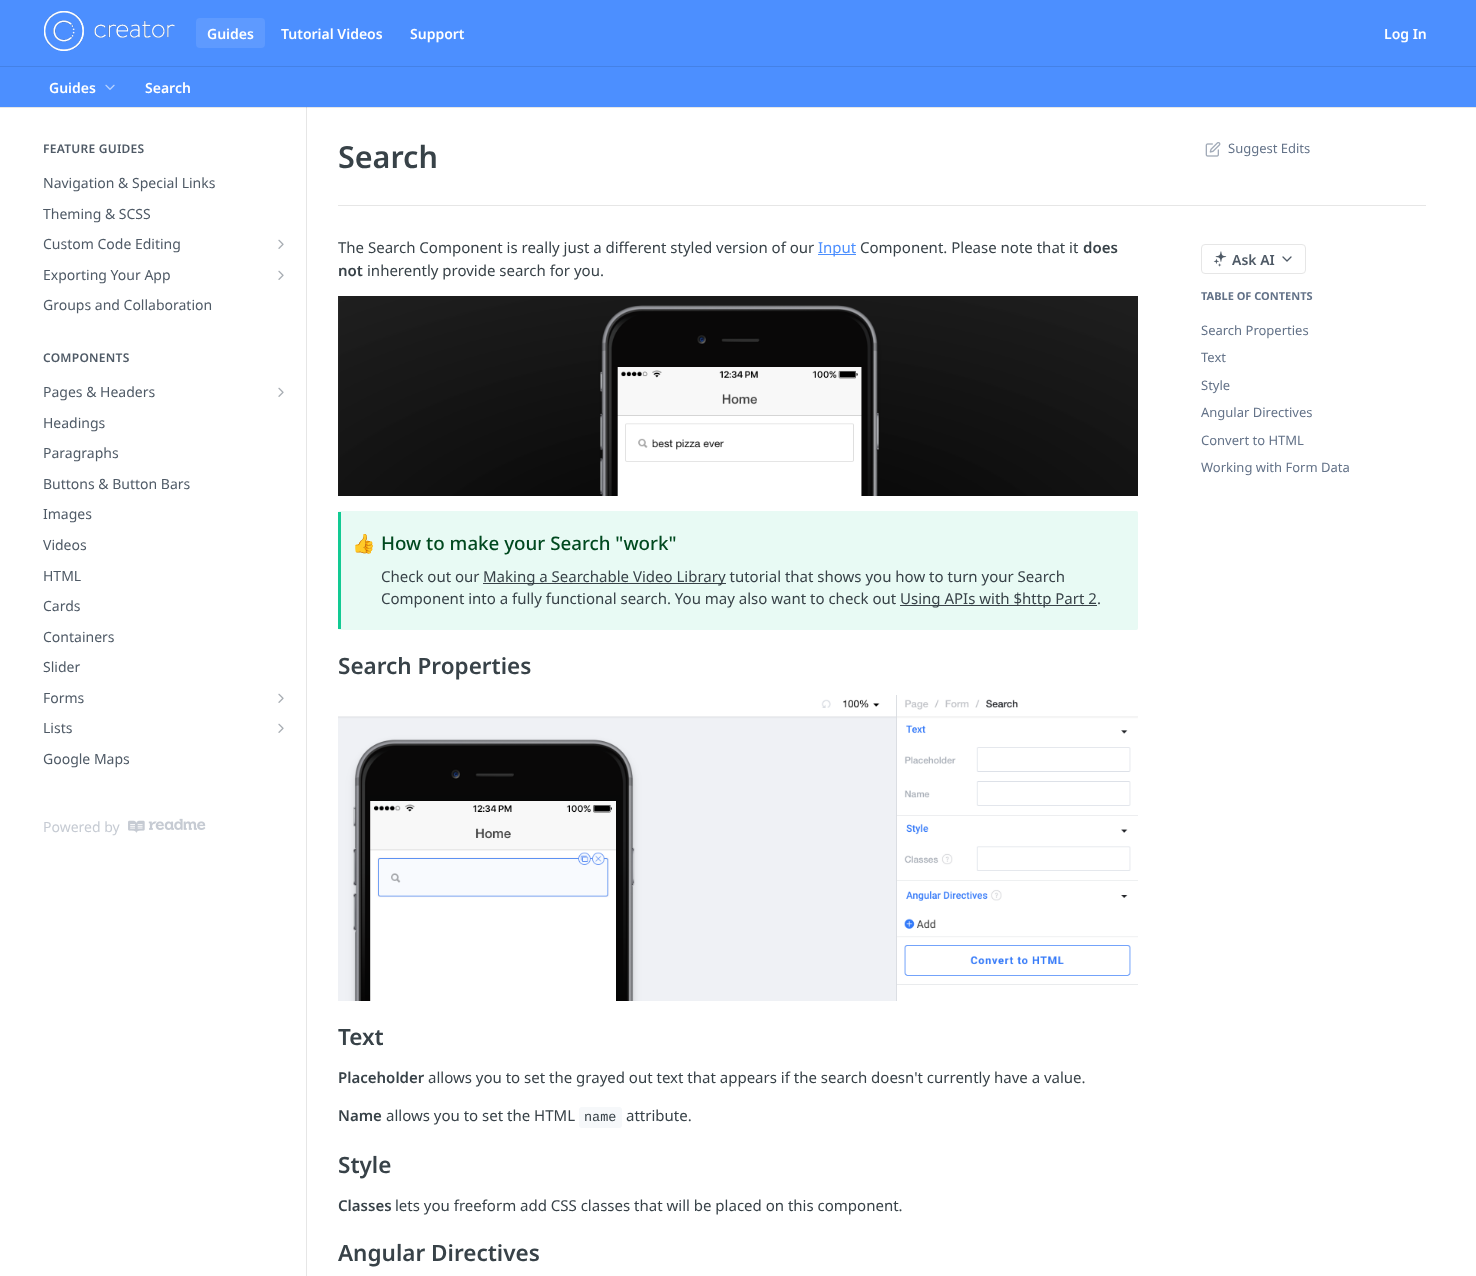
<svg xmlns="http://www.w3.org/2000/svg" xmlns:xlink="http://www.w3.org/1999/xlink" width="1476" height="1276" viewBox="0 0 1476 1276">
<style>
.cls-1{font:600 14px Noto Sans;fill:#ffffff}
.cls-2{font:600 12px Noto Sans;letter-spacing:0.25px;fill:#4f5a66}
.cls-3{font:14px Noto Sans;fill:#4f5a66}
.cls-4{font:14px Noto Sans;fill:#c6cbd3}
.cls-5{font:600 30.5px Noto Sans;fill:#384248}
.cls-6{font:13px Noto Sans;fill:#637288}
.cls-7{font:15px Noto Sans;fill:#384248}
.cls-8{font:15px Noto Sans;fill:#4c8fff}
.cls-9{font:600 15px Noto Sans;fill:#384248}
.cls-10{font:18.75px Noto Color Emoji;fill:#00491f}
.cls-11{font:500 18.75px Noto Sans;fill:#00491f}
.cls-12{font:600 22.5px Noto Sans;fill:#384248}
.cls-13{font:13.5px Liberation Mono;fill:#384248}
.cls-14{font:600 14px Noto Sans;fill:#4f5a66}
.cls-15{font:bold 11px Noto Sans;fill:#637288}
</style>
<rect width="100%" height="100%" fill="#ffffff"/>
<rect fill="#e6e6e6" x="0" y="107" width="1476" height="1"/>
<rect fill="#4c8fff" x="0" y="0" width="1476" height="107"/>
<rect fill="#4481e6" x="0" y="66" width="1476" height="1"/>
<image xlink:href="image0.png" x="44" y="11" width="131" height="40"/>
<rect fill="#5e9aff" x="196" y="18" width="69" height="30" rx="4"/>
<image xlink:href="image1.png" x="105" y="84" width="10" height="6"/>
<rect fill="#e6e6e6" x="306" y="107" width="1" height="1169"/>
<rect fill="#cfcfcf" x="306" y="107" width="1" height="1"/>
<image xlink:href="image2.png" x="278" y="239" width="6" height="10"/>
<image xlink:href="image2.png" x="278" y="270" width="6" height="10"/>
<image xlink:href="image2.png" x="278" y="387" width="6" height="10"/>
<image xlink:href="image2.png" x="278" y="693" width="6" height="10"/>
<image xlink:href="image2.png" x="278" y="723" width="6" height="10"/>
<image xlink:href="image3.png" x="128" y="818" width="78" height="15"/>
<rect fill="#e6e6e6" x="338" y="205" width="1088" height="1"/>
<image xlink:href="image4.png" x="1205" y="142" width="16" height="15"/>
<rect fill="#4c8fff" x="818" y="254" width="38" height="1"/>
<image xlink:href="image5.png" x="338" y="296" width="800" height="200"/>
<rect fill="#e8faf4" x="338" y="511" width="800" height="119" rx="2"/>
<rect fill="#12ca93" x="338" y="512" width="3" height="117"/>
<rect fill="#384248" x="483" y="583" width="243" height="1"/>
<rect fill="#384248" x="900" y="605" width="197" height="1"/>
<image xlink:href="image6.png" x="338" y="695" width="800" height="306"/>
<rect fill="#f6f8fa" x="579" y="1107" width="43" height="21" rx="3"/>
<rect fill="none" stroke="#e6e6e6" x="1201.5" y="244.5" width="104" height="29" rx="3.5"/>
<image xlink:href="image7.png" x="1213" y="251" width="14" height="16"/>
<path fill="none" stroke="#4f5a66" stroke-width="1.3" stroke-linecap="round" stroke-linejoin="round" d="M1283 257L1287 261L1291 257"/>
<text class="cls-1" x="207" y="39">Guides</text>
<text class="cls-1" x="281" y="39">Tutorial Videos</text>
<text class="cls-1" x="410" y="39">Support</text>
<text class="cls-1" x="1384" y="39">Log In</text>
<text class="cls-1" x="49" y="93">Guides</text>
<text class="cls-1" x="145" y="93">Search</text>
<text class="cls-2" x="43" y="153">FEATURE GUIDES</text>
<text class="cls-3" x="43" y="188">Navigation &amp; Special Links</text>
<text class="cls-3" x="43" y="219">Theming &amp; SCSS</text>
<text class="cls-3" x="43" y="249">Custom Code Editing</text>
<text class="cls-3" x="43" y="280">Exporting Your App</text>
<text class="cls-3" x="43" y="310">Groups and Collaboration</text>
<text class="cls-2" x="43" y="362">COMPONENTS</text>
<text class="cls-3" x="43" y="397">Pages &amp; Headers</text>
<text class="cls-3" x="43" y="428">Headings</text>
<text class="cls-3" x="43" y="458">Paragraphs</text>
<text class="cls-3" x="43" y="489">Buttons &amp; Button Bars</text>
<text class="cls-3" x="43" y="519">Images</text>
<text class="cls-3" x="43" y="550">Videos</text>
<text class="cls-3" x="43" y="581">HTML</text>
<text class="cls-3" x="43" y="611">Cards</text>
<text class="cls-3" x="43" y="642">Containers</text>
<text class="cls-3" x="43" y="672">Slider</text>
<text class="cls-3" x="43" y="703">Forms</text>
<text class="cls-3" x="43" y="733">Lists</text>
<text class="cls-3" x="43" y="764">Google Maps</text>
<text class="cls-4" x="43" y="832">Powered by</text>
<text class="cls-5" x="338" y="168">Search</text>
<text class="cls-6" x="1228" y="153">Suggest Edits</text>
<text class="cls-7" x="338" y="253">The Search Component is really just a different styled version of our</text>
<text class="cls-8" x="818" y="253">Input</text>
<text class="cls-7" x="860" y="253">Component. Please note that it</text>
<text class="cls-9" x="1083" y="253">does</text>
<text class="cls-9" x="338" y="276">not</text>
<text class="cls-7" x="367" y="276">inherently provide search for you.</text>
<text class="cls-10" x="352" y="550">👍</text>
<text class="cls-11" x="381" y="550">How to make your Search "work"</text>
<text class="cls-7" x="381" y="582">Check out our</text>
<text class="cls-7" x="483" y="582">Making a Searchable Video Library tutorial that shows you how to turn your Search</text>
<text class="cls-7" x="381" y="604">Component into a fully functional search. You may also want to check out</text>
<text class="cls-7" x="900" y="604">Using APIs with $http Part 2.</text>
<text class="cls-12" x="338" y="674">Search Properties</text>
<text class="cls-12" x="338" y="1045">Text</text>
<text class="cls-9" x="338" y="1083">Placeholder</text>
<text class="cls-7" x="428" y="1083">allows you to set the grayed out text that appears if the search doesn't currently have a value.</text>
<text class="cls-9" x="338" y="1121">Name</text>
<text class="cls-7" x="386" y="1121">allows you to set the HTML</text>
<text class="cls-13" x="584" y="1121">name</text>
<text class="cls-7" x="626" y="1121">attribute.</text>
<text class="cls-12" x="338" y="1173">Style</text>
<text class="cls-9" x="338" y="1211">Classes</text>
<text class="cls-7" x="395" y="1211">lets you freeform add CSS classes that will be placed on this component.</text>
<text class="cls-12" x="338" y="1261">Angular Directives</text>
<text class="cls-14" x="1232" y="265">Ask AI</text>
<text class="cls-15" x="1201" y="300">TABLE OF CONTENTS</text>
<text class="cls-6" x="1201" y="335">Search Properties</text>
<text class="cls-6" x="1201" y="362">Text</text>
<text class="cls-6" x="1201" y="390">Style</text>
<text class="cls-6" x="1201" y="417">Angular Directives</text>
<text class="cls-6" x="1201" y="445">Convert to HTML</text>
<text class="cls-6" x="1201" y="472">Working with Form Data</text>
</svg>
